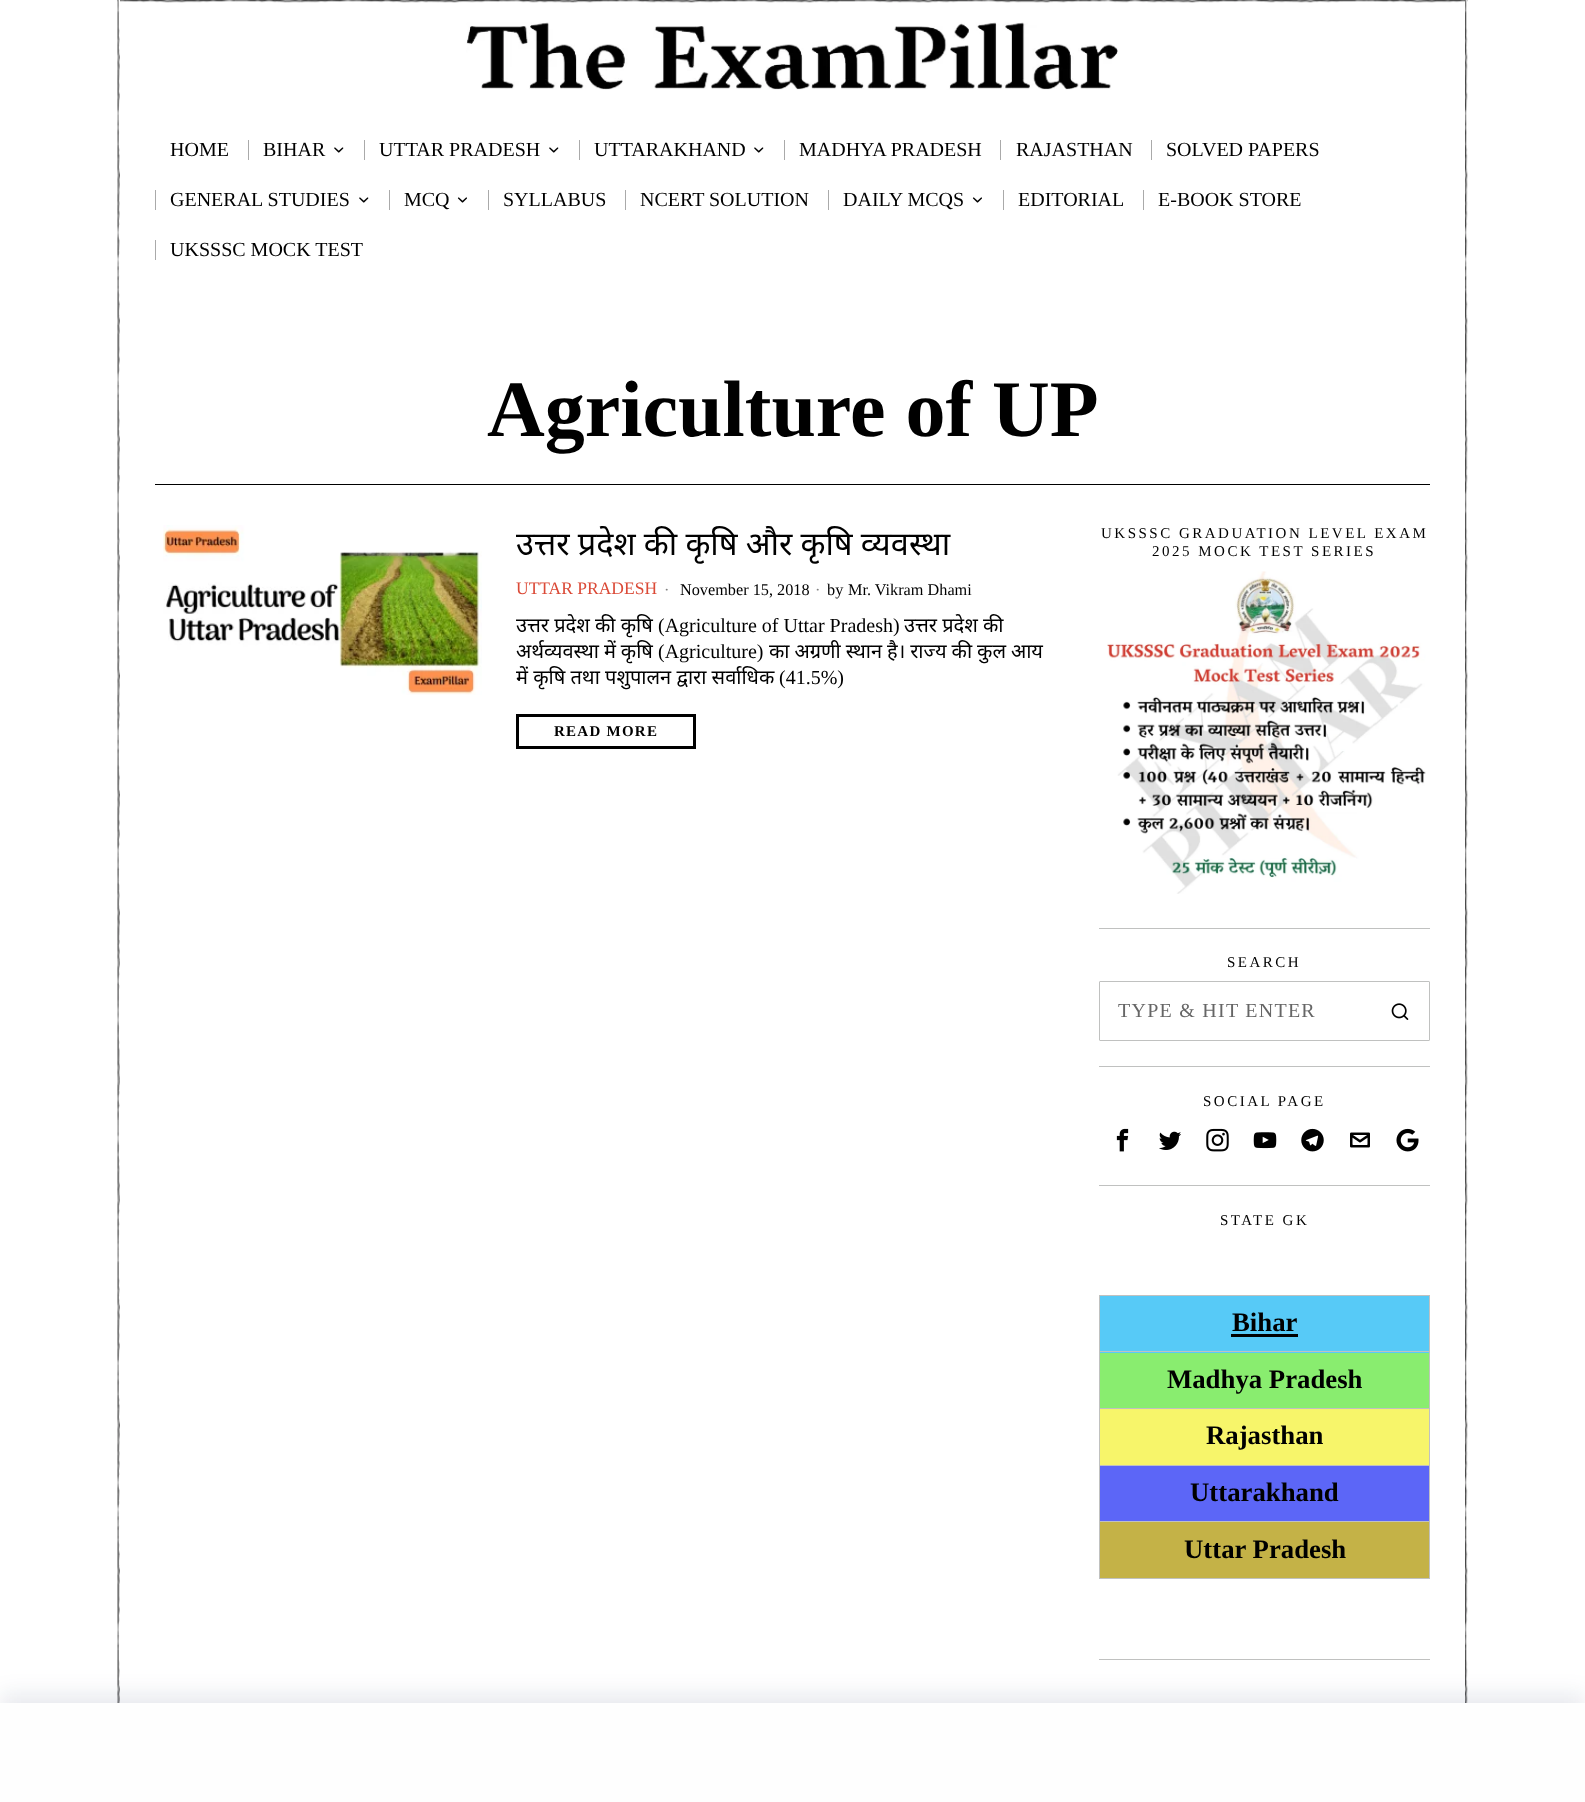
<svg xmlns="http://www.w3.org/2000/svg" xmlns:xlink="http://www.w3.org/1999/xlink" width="1585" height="1802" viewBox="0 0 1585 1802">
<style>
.cls-1{font:20px Liberation Serif;fill:#000000}
.cls-2{font:bold 80px Liberation Serif;fill:#000000}
.cls-3{font:32.5px Noto Sans;fill:#000000}
.cls-4{font:17.5px Liberation Serif;fill:#db4a37}
.cls-5{font:16.25px Liberation Serif;fill:#808080}
.cls-6{font:16.25px Liberation Serif;fill:#000000}
.cls-7{font:20px Noto Sans;fill:#000000}
.cls-8{font:bold 15px Liberation Serif;letter-spacing:1.25px;fill:#000000}
.cls-9{font:15px Liberation Serif;letter-spacing:2.5px;fill:#000000}
.cls-10{font:20px Liberation Serif;letter-spacing:1.25px;fill:#666666}
.cls-11{font:bold 26.75px Liberation Serif;fill:#000000}
</style>
<defs>
<clipPath id="clip1"><rect x="1118" y="1000" width="251" height="23"/></clipPath>
</defs>
<rect width="100%" height="100%" fill="#ffffff"/>
<image xlink:href="image0.png" x="117" y="0" width="1351" height="3"/>
<image xlink:href="image1.png" x="117" y="0" width="3" height="1703"/>
<image xlink:href="image2.png" x="466" y="22" width="652" height="68"/>
<rect fill="#aaaaaa" x="248" y="140" width="1" height="20"/>
<image xlink:href="image3.png" x="334" y="147" width="10" height="6"/>
<rect fill="#aaaaaa" x="364" y="140" width="1" height="20"/>
<image xlink:href="image3.png" x="549" y="147" width="10" height="6"/>
<rect fill="#aaaaaa" x="579" y="140" width="1" height="20"/>
<image xlink:href="image3.png" x="754" y="147" width="10" height="6"/>
<rect fill="#aaaaaa" x="784" y="140" width="1" height="20"/>
<rect fill="#aaaaaa" x="1000" y="140" width="1" height="20"/>
<rect fill="#aaaaaa" x="1151" y="140" width="1" height="20"/>
<rect fill="#aaaaaa" x="155" y="190" width="1" height="20"/>
<image xlink:href="image3.png" x="359" y="197" width="10" height="6"/>
<rect fill="#aaaaaa" x="389" y="190" width="1" height="20"/>
<image xlink:href="image4.png" x="457" y="197" width="10" height="6"/>
<rect fill="#aaaaaa" x="488" y="190" width="1" height="20"/>
<rect fill="#aaaaaa" x="625" y="190" width="1" height="20"/>
<rect fill="#aaaaaa" x="828" y="190" width="1" height="20"/>
<image xlink:href="image4.png" x="972" y="197" width="10" height="6"/>
<rect fill="#aaaaaa" x="1003" y="190" width="1" height="20"/>
<rect fill="#aaaaaa" x="1143" y="190" width="1" height="20"/>
<rect fill="#aaaaaa" x="155" y="240" width="1" height="20"/>
<image xlink:href="image5.png" x="1465" y="0" width="3" height="1703"/>
<rect fill="#000000" x="155" y="484" width="1275" height="1"/>
<image xlink:href="image6.png" x="163" y="525" width="319" height="170"/>
<rect fill="none" stroke="#000000" stroke-width="3" x="517.5" y="715.5" width="177" height="32"/>
<image xlink:href="image7.png" x="1107" y="571" width="319" height="323"/>
<rect fill="#c0c1c0" x="1099" y="928" width="331" height="1"/>
<rect fill="none" stroke="#c0c1c0" x="1099.5" y="981.5" width="330" height="59" rx="0.5"/>
<image xlink:href="image8.png" x="1391" y="1003" width="18" height="17"/>
<rect fill="#c0c1c0" x="1099" y="1066" width="331" height="1"/>
<image xlink:href="image9.png" x="1116" y="1128" width="13" height="24"/>
<image xlink:href="image10.png" x="1159" y="1131" width="22" height="19"/>
<image xlink:href="image11.png" x="1206" y="1128" width="23" height="24"/>
<image xlink:href="image12.png" x="1253" y="1132" width="24" height="17"/>
<image xlink:href="image13.png" x="1301" y="1128" width="23" height="24"/>
<image xlink:href="image14.png" x="1350" y="1132" width="20" height="16"/>
<image xlink:href="image15.png" x="1396" y="1128" width="23" height="24"/>
<rect fill="#c0c1c0" x="1099" y="1185" width="331" height="1"/>
<rect fill="#c0c1c0" x="1099" y="1295" width="331" height="1"/>
<rect fill="#c0c1c0" x="1429" y="1295" width="1" height="284"/>
<rect fill="#c0c1c0" x="1099" y="1578" width="331" height="1"/>
<rect fill="#c0c1c0" x="1099" y="1295" width="1" height="284"/>
<rect fill="#57caf7" x="1100" y="1296" width="329" height="57"/>
<rect fill="#000000" x="1231" y="1334" width="67" height="3"/>
<rect fill="#89ed6f" x="1100" y="1353" width="329" height="55"/>
<rect fill="#c0c1c0" x="1099" y="1351" width="331" height="1"/>
<rect fill="#f7f56a" x="1100" y="1409" width="329" height="56"/>
<rect fill="#c0c1c0" x="1099" y="1408" width="331" height="1"/>
<rect fill="#5c66f7" x="1100" y="1466" width="329" height="55"/>
<rect fill="#c0c1c0" x="1099" y="1465" width="331" height="1"/>
<rect fill="#c4b247" x="1100" y="1522" width="329" height="56"/>
<rect fill="#c0c1c0" x="1099" y="1521" width="331" height="1"/>
<rect fill="#c0c1c0" x="1099" y="1659" width="331" height="1"/>
<rect fill="#09204c" fill-opacity="0.1" filter="blur(11px)" x="0" y="1695" width="1585" height="100"/>
<rect fill="#fefefe" x="0" y="1703" width="1585" height="99"/>
<text class="cls-1" x="170" y="156">HOME</text>
<text class="cls-1" x="263" y="156">BIHAR</text>
<text class="cls-1" x="379" y="156">UTTAR PRADESH</text>
<text class="cls-1" x="594" y="156">UTTARAKHAND</text>
<text class="cls-1" x="799" y="156">MADHYA PRADESH</text>
<text class="cls-1" x="1016" y="156">RAJASTHAN</text>
<text class="cls-1" x="1166" y="156">SOLVED PAPERS</text>
<text class="cls-1" x="170" y="206">GENERAL STUDIES</text>
<text class="cls-1" x="404" y="206">MCQ</text>
<text class="cls-1" x="503" y="206">SYLLABUS</text>
<text class="cls-1" x="640" y="206">NCERT SOLUTION</text>
<text class="cls-1" x="843" y="206">DAILY MCQS</text>
<text class="cls-1" x="1018" y="206">EDITORIAL</text>
<text class="cls-1" x="1158" y="206">E-BOOK STORE</text>
<text class="cls-1" x="170" y="256">UKSSSC MOCK TEST</text>
<text class="cls-2" x="487" y="436">Agriculture of UP</text>
<text class="cls-3" x="516" y="555" word-spacing="-0.25">उत्तर प्रदेश की कृषि और कृषि व्यवस्था</text>
<text class="cls-4" x="516" y="594">UTTAR PRADESH</text>
<text class="cls-5" x="664" y="595">·</text>
<text class="cls-6" x="680" y="595">November 15, 2018</text>
<text class="cls-5" x="815" y="595">·</text>
<text class="cls-6" x="827" y="595">by</text>
<text class="cls-6" x="848" y="595">Mr. Vikram Dhami</text>
<text class="cls-7" x="516" y="632">उत्तर प्रदेश की कृषि</text>
<text class="cls-1" x="658" y="632">(Agriculture of Uttar Pradesh)</text>
<text class="cls-7" x="904" y="632">उत्तर प्रदेश की</text>
<text class="cls-7" x="516" y="658" word-spacing="-0.25">अर्थव्यवस्था में कृषि</text>
<text class="cls-1" x="658" y="658">(Agriculture)</text>
<text class="cls-7" x="769" y="658" word-spacing="-0.25">का अग्रणी स्थान है। राज्य की कुल आय</text>
<text class="cls-7" x="516" y="684">में कृषि तथा पशुपालन द्वारा सर्वाधिक</text>
<text class="cls-1" x="779" y="684">(41.5%)</text>
<text class="cls-8" x="554" y="736">READ MORE</text>
<text class="cls-9" x="1101" y="538">UKSSSC GRADUATION LEVEL EXAM</text>
<text class="cls-9" x="1152" y="556">2025 MOCK TEST SERIES</text>
<text class="cls-9" x="1227" y="967">SEARCH</text>
<g clip-path="url(#clip1)">
<text class="cls-10" x="1118" y="1017">TYPE &amp; HIT ENTER</text>
</g>
<text class="cls-9" x="1203" y="1106">SOCIAL PAGE</text>
<text class="cls-9" x="1220" y="1225">STATE GK</text>
<text class="cls-11" x="1232" y="1331">Bihar</text>
<text class="cls-11" x="1167" y="1388">Madhya Pradesh</text>
<text class="cls-11" x="1206" y="1444">Rajasthan</text>
<text class="cls-11" x="1190" y="1501">Uttarakhand</text>
<text class="cls-11" x="1184" y="1558">Uttar Pradesh</text>
</svg>
